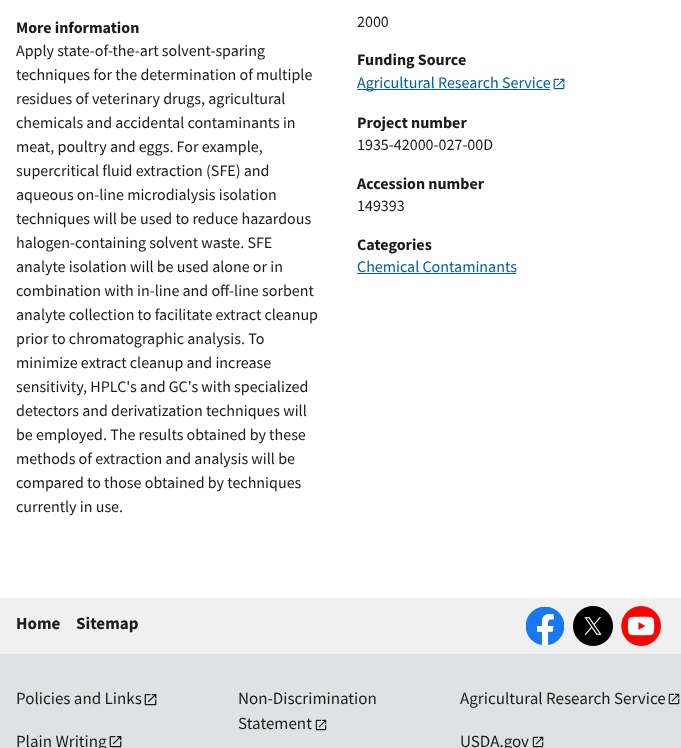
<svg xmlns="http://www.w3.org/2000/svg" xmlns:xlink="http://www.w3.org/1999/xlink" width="681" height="748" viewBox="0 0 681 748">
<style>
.cls-1{font:bold 16px Source Sans Pro;fill:#1b1b1b}
.cls-2{font:16px Source Sans Pro;fill:#1b1b1b}
.cls-3{font:16px Source Sans Pro;fill:#005ea2}
.cls-4{font:bold 17px Source Sans Pro;fill:#1b1b1b}
.cls-5{font:17px Source Sans Pro;fill:#1b1b1b}
</style>
<rect width="100%" height="100%" fill="#ffffff"/>
<rect fill="#005ea2" x="357" y="89" width="193" height="1"/>
<image xlink:href="image0.png" x="553" y="78" width="12" height="12"/>
<rect fill="#005ea2" x="357" y="273" width="159" height="1"/>
<rect fill="#f0f0f0" x="0" y="598" width="681" height="56"/>
<image xlink:href="image1.png" x="526" y="607" width="38" height="39"/>
<image xlink:href="image2.png" x="573" y="606" width="40" height="40"/>
<image xlink:href="image3.png" x="621" y="606" width="40" height="40"/>
<rect fill="#dfe1e2" x="0" y="654" width="681" height="94"/>
<image xlink:href="image4.png" x="144" y="694" width="13" height="12"/>
<image xlink:href="image5.png" x="315" y="719" width="12" height="12"/>
<image xlink:href="image5.png" x="668" y="693" width="12" height="12"/>
<image xlink:href="image4.png" x="109" y="736" width="13" height="12"/>
<image xlink:href="image5.png" x="532" y="736" width="12" height="12"/>
<text class="cls-1" x="16" y="33">More information</text>
<text class="cls-2"><tspan x="16" y="56">Apply state-of-the-art solvent-sparing</tspan><tspan x="16" y="80">techniques for the determination of multiple</tspan><tspan x="16" y="104">residues of veterinary drugs, agricultural</tspan><tspan x="16" y="128">chemicals and accidental contaminants in</tspan><tspan x="16" y="152">meat, poultry and eggs. For example,</tspan><tspan x="16" y="176">supercritical fluid extraction (SFE) and</tspan><tspan x="16" y="200">aqueous on-line microdialysis isolation</tspan><tspan x="16" y="224">techniques will be used to reduce hazardous</tspan><tspan x="16" y="248">halogen-containing solvent waste. SFE</tspan><tspan x="16" y="272">analyte isolation will be used alone or in</tspan><tspan x="16" y="296">combination with in-line and off-line sorbent</tspan><tspan x="16" y="320">analyte collection to facilitate extract cleanup</tspan><tspan x="16" y="344">prior to chromatographic analysis. To</tspan><tspan x="16" y="368">minimize extract cleanup and increase</tspan><tspan x="16" y="392">sensitivity, HPLC's and GC's with specialized</tspan><tspan x="16" y="416">detectors and derivatization techniques will</tspan><tspan x="16" y="440">be employed. The results obtained by these</tspan><tspan x="16" y="464">methods of extraction and analysis will be</tspan><tspan x="16" y="488">compared to those obtained by techniques</tspan><tspan x="16" y="512">currently in use.</tspan></text>
<text class="cls-2" x="357" y="27">2000</text>
<text class="cls-1" x="357" y="65">Funding Source</text>
<text class="cls-3" x="357" y="88">Agricultural Research Service</text>
<text class="cls-1" x="357" y="128">Project number</text>
<text class="cls-2" x="357" y="150">1935-42000-027-00D</text>
<text class="cls-1" x="357" y="189">Accession number</text>
<text class="cls-2" x="357" y="211">149393</text>
<text class="cls-1" x="357" y="250">Categories</text>
<text class="cls-3" x="357" y="272">Chemical Contaminants</text>
<text class="cls-4" x="16" y="629">Home</text>
<text class="cls-4" x="76" y="629">Sitemap</text>
<text class="cls-5" x="16" y="704">Policies and Links</text>
<text class="cls-5"><tspan x="238" y="704">Non-Discrimination</tspan><tspan x="238" y="729">Statement</tspan></text>
<text class="cls-5" x="460" y="704">Agricultural Research Service</text>
<text class="cls-5" x="16" y="747">Plain Writing</text>
<text class="cls-5" x="460" y="747">USDA.gov</text>
</svg>
